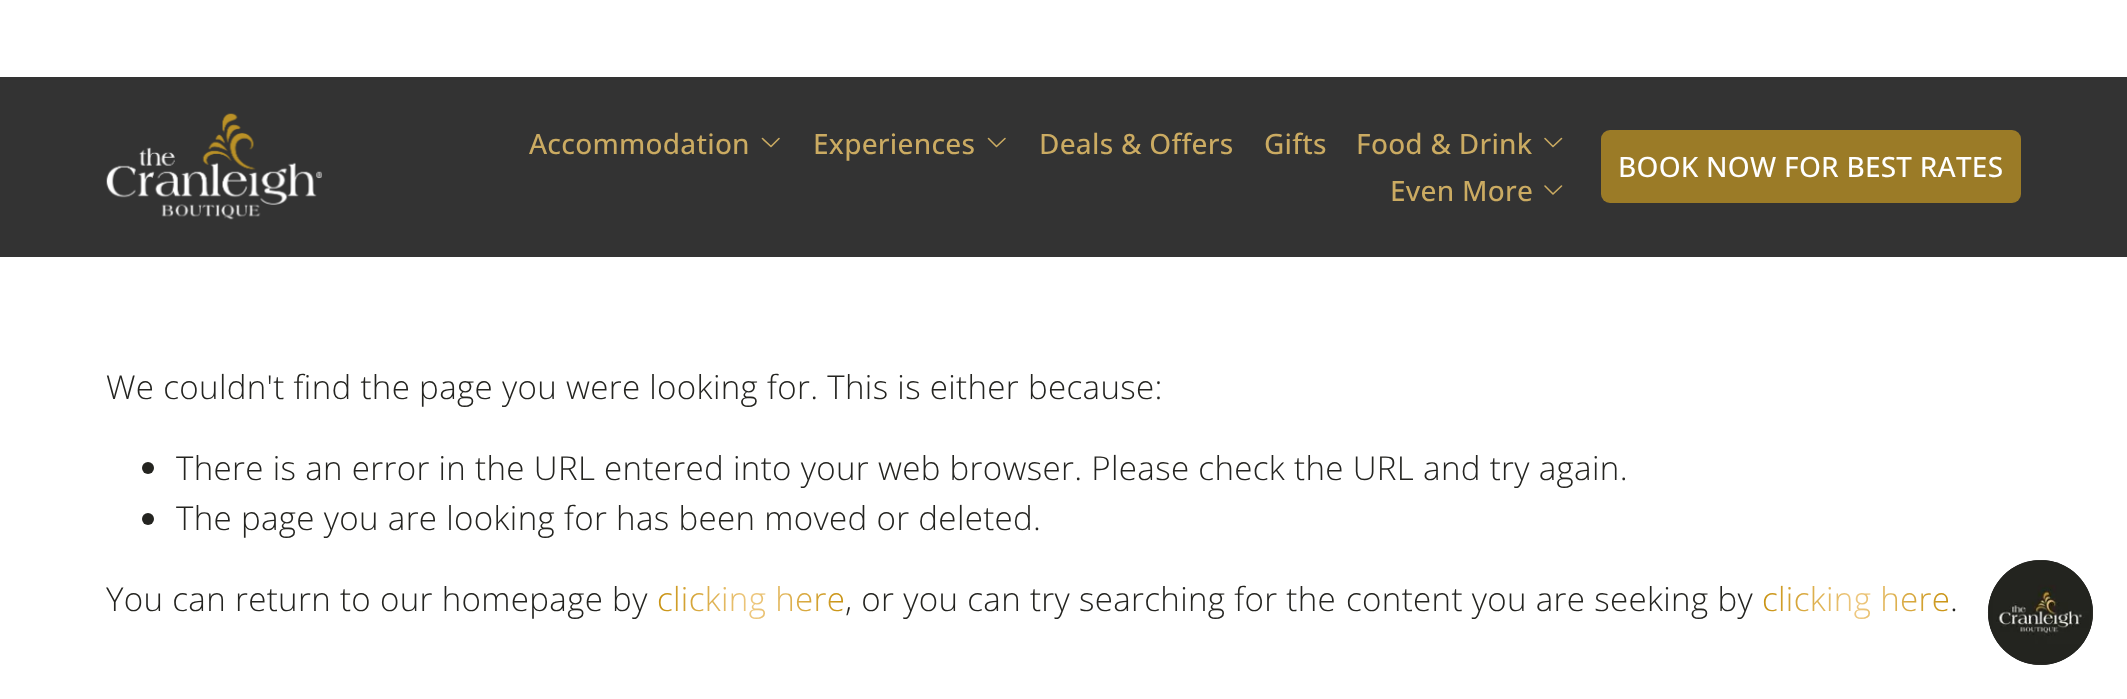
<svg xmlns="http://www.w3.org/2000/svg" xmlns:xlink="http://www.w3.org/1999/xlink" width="2127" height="699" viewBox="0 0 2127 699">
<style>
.cls-1{font:500 28px Open Sans;letter-spacing:0.25px;fill:#cbab62}
.cls-2{font:500 28px Open Sans;letter-spacing:0.25px;fill:#ffffff}
.cls-3{font:300 33.1px Open Sans;letter-spacing:0.33px;fill:#242420}
.cls-4{font:300 33.1px Open Sans;letter-spacing:0.33px;fill:url(#g1)}
.cls-5{font:300 33.1px Open Sans;letter-spacing:0.33px;fill:url(#g2)}
</style>
<defs>
<linearGradient id="g1" gradientUnits="userSpaceOnUse" x1="657" y1="599" x2="845" y2="599"><stop offset="0" stop-color="#c89211"/><stop offset="0.5" stop-color="#eec880"/><stop offset="1" stop-color="#c89211"/></linearGradient>
<linearGradient id="g2" gradientUnits="userSpaceOnUse" x1="1762" y1="599" x2="1950" y2="599"><stop offset="0" stop-color="#c89211"/><stop offset="0.5" stop-color="#eec880"/><stop offset="1" stop-color="#c89211"/></linearGradient>
<linearGradient id="g3" gradientUnits="userSpaceOnUse" x1="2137" y1="-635" x2="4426" y2="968"><stop offset="0" stop-color="#9b7b27"/><stop offset="0.33" stop-color="#9b7b27"/><stop offset="0.5" stop-color="#eec880"/><stop offset="0.67" stop-color="#9b7b27"/><stop offset="1" stop-color="#9b7b27"/></linearGradient>
</defs>
<rect width="100%" height="100%" fill="#ffffff"/>
<rect fill="#333333" x="0" y="77" width="2127" height="180"/>
<image xlink:href="image0.png" x="106" y="113" width="216" height="107"/>
<path fill="none" stroke="#cbab62" stroke-width="1.6" stroke-linecap="round" stroke-linejoin="round" d="M779 138.5L771 146.5L762.5 138.5"/>
<path fill="none" stroke="#cbab62" stroke-width="1.6" stroke-linecap="round" stroke-linejoin="round" d="M1005 138.5L996.5 146.5L988.5 138.5"/>
<path fill="none" stroke="#cbab62" stroke-width="1.6" stroke-linecap="round" stroke-linejoin="round" d="M1561.5 138.5L1553 146.5L1545 138.5"/>
<path fill="none" stroke="#cbab62" stroke-width="1.6" stroke-linecap="round" stroke-linejoin="round" d="M1561.5 186L1553 194L1545 186"/>
<rect fill="url(#g3)" x="1601" y="130" width="420" height="73" rx="9"/>
<circle fill="#242420" cx="148" cy="468" r="6"/>
<circle fill="#242420" cx="148" cy="519" r="6"/>
<circle fill="#000000" cx="2040.5" cy="612.5" r="52.5"/>
<image xlink:href="image1.png" x="1988" y="560" width="105" height="105"/>
<text class="cls-1" x="529" y="154">Accommodation</text>
<text class="cls-1" x="813" y="154">Experiences</text>
<text class="cls-1" x="1039" y="154">Deals &amp; Offers</text>
<text class="cls-1" x="1264" y="154">Gifts</text>
<text class="cls-1" x="1356" y="154">Food &amp; Drink</text>
<text class="cls-1" x="1390" y="201">Even More</text>
<text class="cls-2" x="1618" y="177">BOOK NOW FOR BEST RATES</text>
<text class="cls-3" x="106" y="399">We couldn't find the page you were looking for. This is either because:</text>
<text class="cls-3"><tspan x="176" y="480">There is an error in the URL entered into your web browser. Please check the URL and try again.</tspan><tspan x="176" y="530">The page you are looking for has been moved or deleted.</tspan></text>
<text class="cls-3" x="106" y="611">You can return to our homepage by</text>
<text class="cls-4" x="657" y="611">clicking here</text>
<text class="cls-3" x="845" y="611">, or you can try searching for the</text>
<text class="cls-3" x="1346" y="611">content you are seeking by</text>
<text class="cls-5" x="1762" y="611">clicking here</text>
<text class="cls-3" x="1950" y="611">.</text>
</svg>
